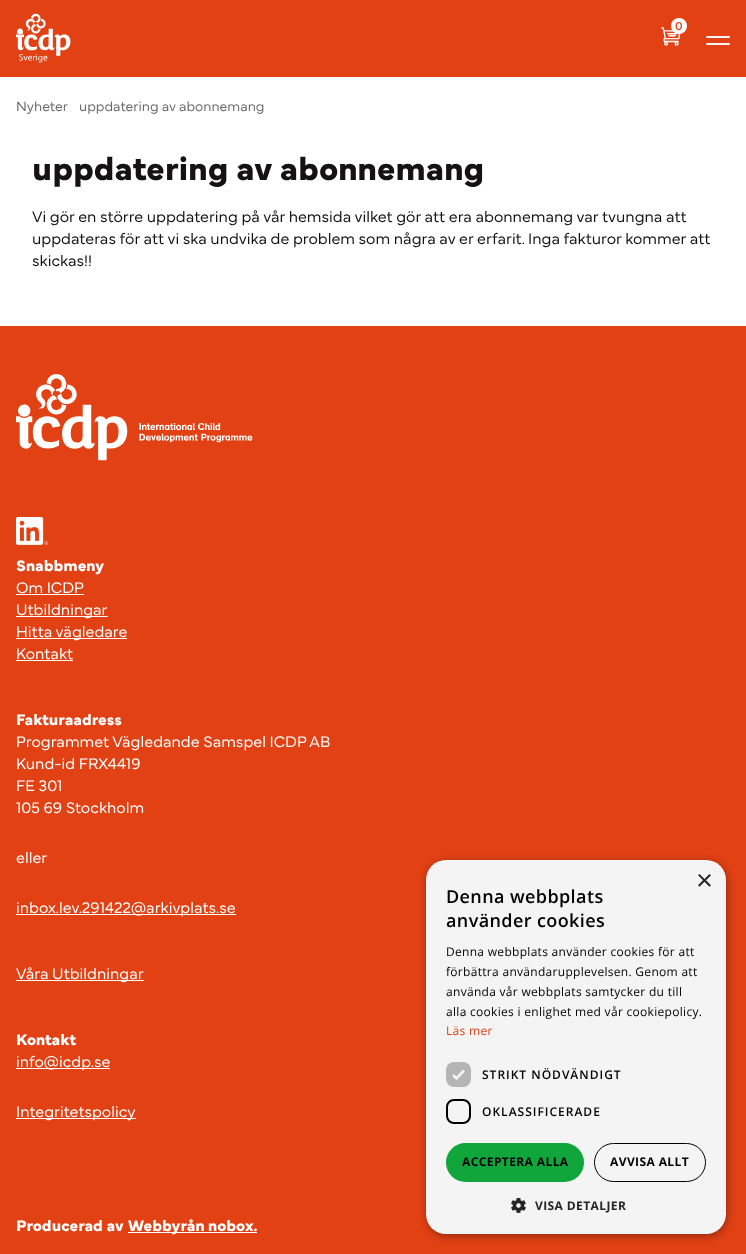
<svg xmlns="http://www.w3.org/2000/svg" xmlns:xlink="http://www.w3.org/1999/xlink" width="746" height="1254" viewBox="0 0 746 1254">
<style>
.cls-1{font:12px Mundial;fill:#e24114}
.cls-2{font:300 14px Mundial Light;fill:#6a6a6a}
.cls-3{font:bold 34px Mundial;fill:#141212}
.cls-4{font:300 16px Mundial Light;fill:#141212}
.cls-5{font:bold 16px Mundial;fill:#ffffff}
.cls-6{font:300 16px Mundial Light;fill:#ffffff}
.cls-7{font:29px Liberation Sans;fill:#252525}
.cls-8{font:600 18px Open Sans;letter-spacing:0.4px;fill:#000000}
.cls-9{font:12px Open Sans;letter-spacing:0.3px;fill:#000000}
.cls-10{font:12px Open Sans;letter-spacing:0.3px;fill:#e24114}
.cls-11{font:600 12px Open Sans;letter-spacing:1px;fill:#000000}
.cls-12{font:bold 12px Open Sans;letter-spacing:0.4px;fill:#000000}
.cls-13{font:bold 12px Open Sans;letter-spacing:0.4px;fill:#252525}
</style>
<rect width="100%" height="100%" fill="#ffffff"/>
<rect fill="#e24114" x="0" y="0" width="746" height="77"/>
<image xlink:href="image0.png" x="16" y="13" width="55" height="50"/>
<image xlink:href="image1.png" x="661" y="27" width="20" height="19"/>
<circle fill="#ffffff" cx="679" cy="26" r="8"/>
<rect fill="#f4f4f4" x="706" y="36" width="24" height="2" rx="1"/>
<rect fill="#f4f4f4" x="706" y="43" width="24" height="2" rx="1"/>
<rect fill="#e24114" x="0" y="326" width="746" height="928"/>
<image xlink:href="image2.png" x="16" y="374" width="237" height="87"/>
<image xlink:href="image3.png" x="16" y="517" width="32" height="28"/>
<rect fill="#ffffff" x="16" y="594" width="68" height="1"/>
<rect fill="#ffffff" x="16" y="616" width="92" height="1"/>
<rect fill="#ffffff" x="16" y="638" width="111" height="1"/>
<rect fill="#ffffff" x="16" y="660" width="57" height="1"/>
<rect fill="#ffffff" x="16" y="914" width="220" height="1"/>
<rect fill="#ffffff" x="16" y="980" width="128" height="1"/>
<rect fill="#ffffff" x="16" y="1068" width="94" height="1"/>
<rect fill="#ffffff" x="16" y="1118" width="120" height="1"/>
<rect fill="#ffffff" x="128" y="1232" width="129" height="1"/>
<rect fill="#000000" fill-opacity="0.35" filter="blur(4px)" x="427" y="862" width="300" height="374" rx="20"/>
<rect fill="#f4f4f4" x="426" y="860" width="300" height="374" rx="20"/>
<rect fill="#b5b5b5" x="446" y="1062" width="25" height="25" rx="8"/>
<path fill="none" stroke="#f4f4f4" stroke-width="2.6" d="M453 1075L456.5 1078.5L464 1070.5"/>
<rect fill="none" stroke="#000000" stroke-width="2" x="447" y="1100" width="23" height="23" rx="7"/>
<rect fill="#11a63c" x="446" y="1143" width="138" height="39" rx="19.5"/>
<rect fill="none" stroke="#000000" x="594.5" y="1143.5" width="111" height="38" rx="19"/>
<image xlink:href="image4.png" x="511" y="1198" width="15" height="15"/>
<text class="cls-1" x="675" y="30">0</text>
<text class="cls-2" x="16" y="111">Nyheter</text>
<text class="cls-2" x="79" y="111">uppdatering av abonnemang</text>
<text class="cls-3" x="32" y="180">uppdatering av abonnemang</text>
<text class="cls-4"><tspan x="32" y="222">Vi gör en större uppdatering på vår hemsida vilket gör att era abonnemang var tvungna att</tspan><tspan x="32" y="244">uppdateras för att vi ska undvika de problem som några av er erfarit. Inga fakturor kommer att</tspan><tspan x="32" y="266">skickas!!</tspan></text>
<text class="cls-5" x="16" y="571">Snabbmeny</text>
<text class="cls-6"><tspan x="16" y="593">Om ICDP</tspan><tspan x="16" y="615">Utbildningar</tspan><tspan x="16" y="637">Hitta vägledare</tspan><tspan x="16" y="659">Kontakt</tspan></text>
<text class="cls-5" x="16" y="725">Fakturaadress</text>
<text class="cls-6"><tspan x="16" y="747">Programmet Vägledande Samspel ICDP AB</tspan><tspan x="16" y="769">Kund-id FRX4419</tspan><tspan x="16" y="791">FE 301</tspan><tspan x="16" y="813">105 69 Stockholm</tspan></text>
<text class="cls-6" x="16" y="863">eller</text>
<text class="cls-6" x="16" y="913">inbox.lev.291422@arkivplats.se</text>
<text class="cls-6" x="16" y="979">Våra Utbildningar</text>
<text class="cls-5" x="16" y="1045">Kontakt</text>
<text class="cls-6" x="16" y="1067">info@icdp.se</text>
<text class="cls-6" x="16" y="1117">Integritetspolicy</text>
<text class="cls-5" x="16" y="1231">Producerad av</text>
<text class="cls-5" x="128" y="1231">Webbyrån nobox.</text>
<text class="cls-7" x="696" y="890">×</text>
<text class="cls-8"><tspan x="446" y="903">Denna webbplats</tspan><tspan x="446" y="927">använder cookies</tspan></text>
<text class="cls-9"><tspan x="446" y="956">Denna webbplats använder cookies för att</tspan><tspan x="446" y="976">förbättra användarupplevelsen. Genom att</tspan><tspan x="446" y="996">använda vår webbplats samtycker du till</tspan><tspan x="446" y="1016">alla cookies i enlighet med vår cookiepolicy.</tspan></text>
<text class="cls-10" x="446" y="1035">Läs mer</text>
<text class="cls-11" x="482" y="1079">STRIKT NÖDVÄNDIGT</text>
<text class="cls-11" x="482" y="1116">OKLASSIFICERADE</text>
<text class="cls-12" x="462" y="1166">ACCEPTERA ALLA</text>
<text class="cls-12" x="610" y="1166">AVVISA ALLT</text>
<text class="cls-13" x="535" y="1210">VISA DETALJER</text>
</svg>
